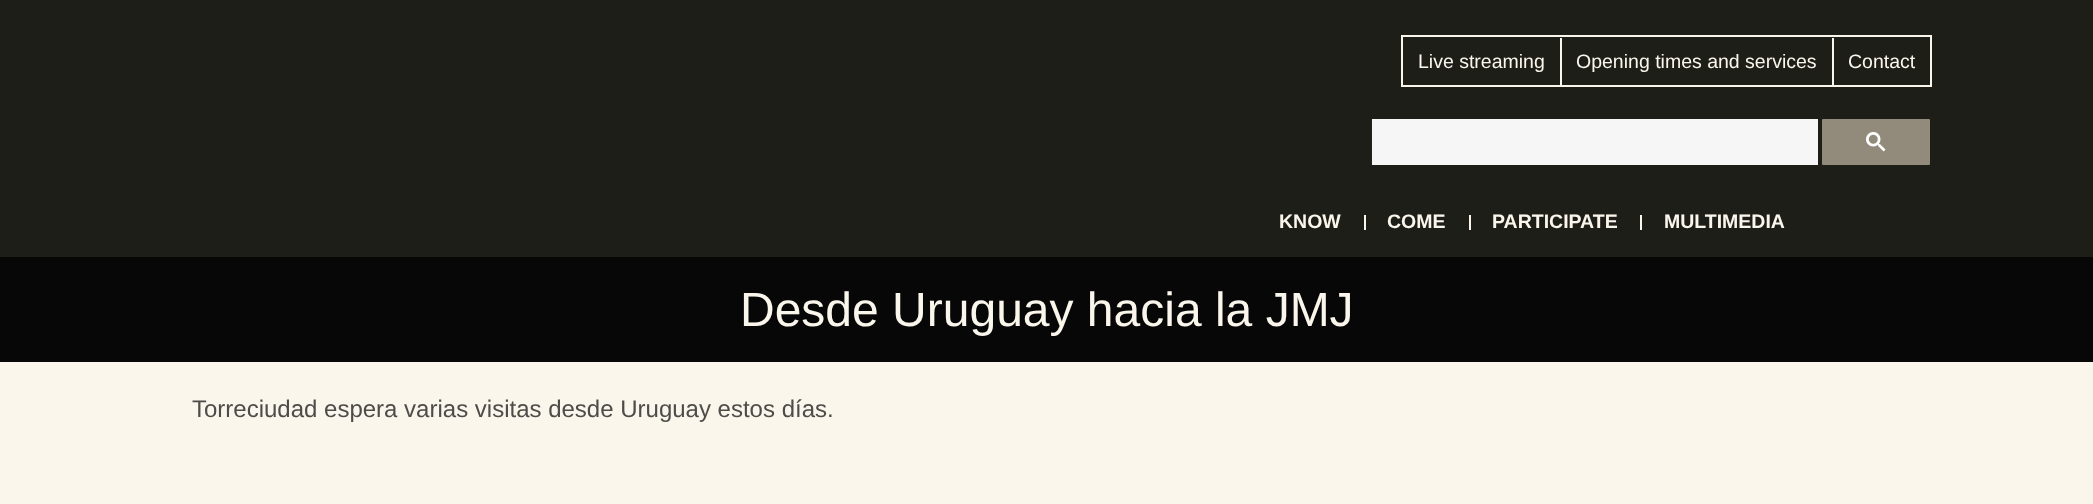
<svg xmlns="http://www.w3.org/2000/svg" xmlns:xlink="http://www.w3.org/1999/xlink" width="2093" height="504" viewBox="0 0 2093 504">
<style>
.cls-1{font:19.5px Liberation Sans;fill:#fbf6ec}
.cls-2{font:bold 19.5px Liberation Sans;fill:#fbf6ec}
.cls-3{font:48px Liberation Sans;fill:#fbf6ec}
.cls-4{font:24px Liberation Sans;fill:#4e4c49}
</style>
<rect width="100%" height="100%" fill="#fbf6ec"/>
<rect fill="#1e1e19" x="0" y="0" width="2093" height="257"/>
<rect fill="none" stroke="#fbf6ec" stroke-width="2" x="1402" y="36" width="529" height="50"/>
<rect fill="#fbf6ec" x="1560" y="38" width="2" height="48"/>
<rect fill="#fbf6ec" x="1832" y="38" width="2" height="48"/>
<rect fill="#ffffff" x="1372" y="119" width="440" height="46"/>
<rect fill="#808080" fill-opacity="0.07" x="1371" y="119" width="441" height="46"/>
<rect fill="#f6f6f6" x="1812" y="119" width="6" height="46"/>
<rect fill="#252520" x="1820" y="117" width="112" height="50"/>
<rect fill="#928b7c" stroke="#1e1e19" stroke-width="2" x="1821" y="118" width="110" height="48" rx="2"/>
<image xlink:href="image0.png" x="1866" y="132" width="20" height="20"/>
<rect fill="#fbf6ec" x="1364" y="215" width="2" height="15"/>
<rect fill="#fbf6ec" x="1469" y="215" width="2" height="15"/>
<rect fill="#fbf6ec" x="1640" y="215" width="2" height="15"/>
<rect fill="#070707" x="0" y="257" width="2093" height="105"/>
<text class="cls-1" x="1418" y="68">Live streaming</text>
<text class="cls-1" x="1576" y="68">Opening times and services</text>
<text class="cls-1" x="1848" y="68">Contact</text>
<text class="cls-2" x="1279" y="228">KNOW</text>
<text class="cls-2" x="1387" y="228">COME</text>
<text class="cls-2" x="1492" y="228">PARTICIPATE</text>
<text class="cls-2" x="1664" y="228">MULTIMEDIA</text>
<text class="cls-3" x="740" y="326">Desde Uruguay hacia la JMJ</text>
<text class="cls-4" x="192" y="417">Torreciudad espera varias visitas desde Uruguay estos días.</text>
</svg>
